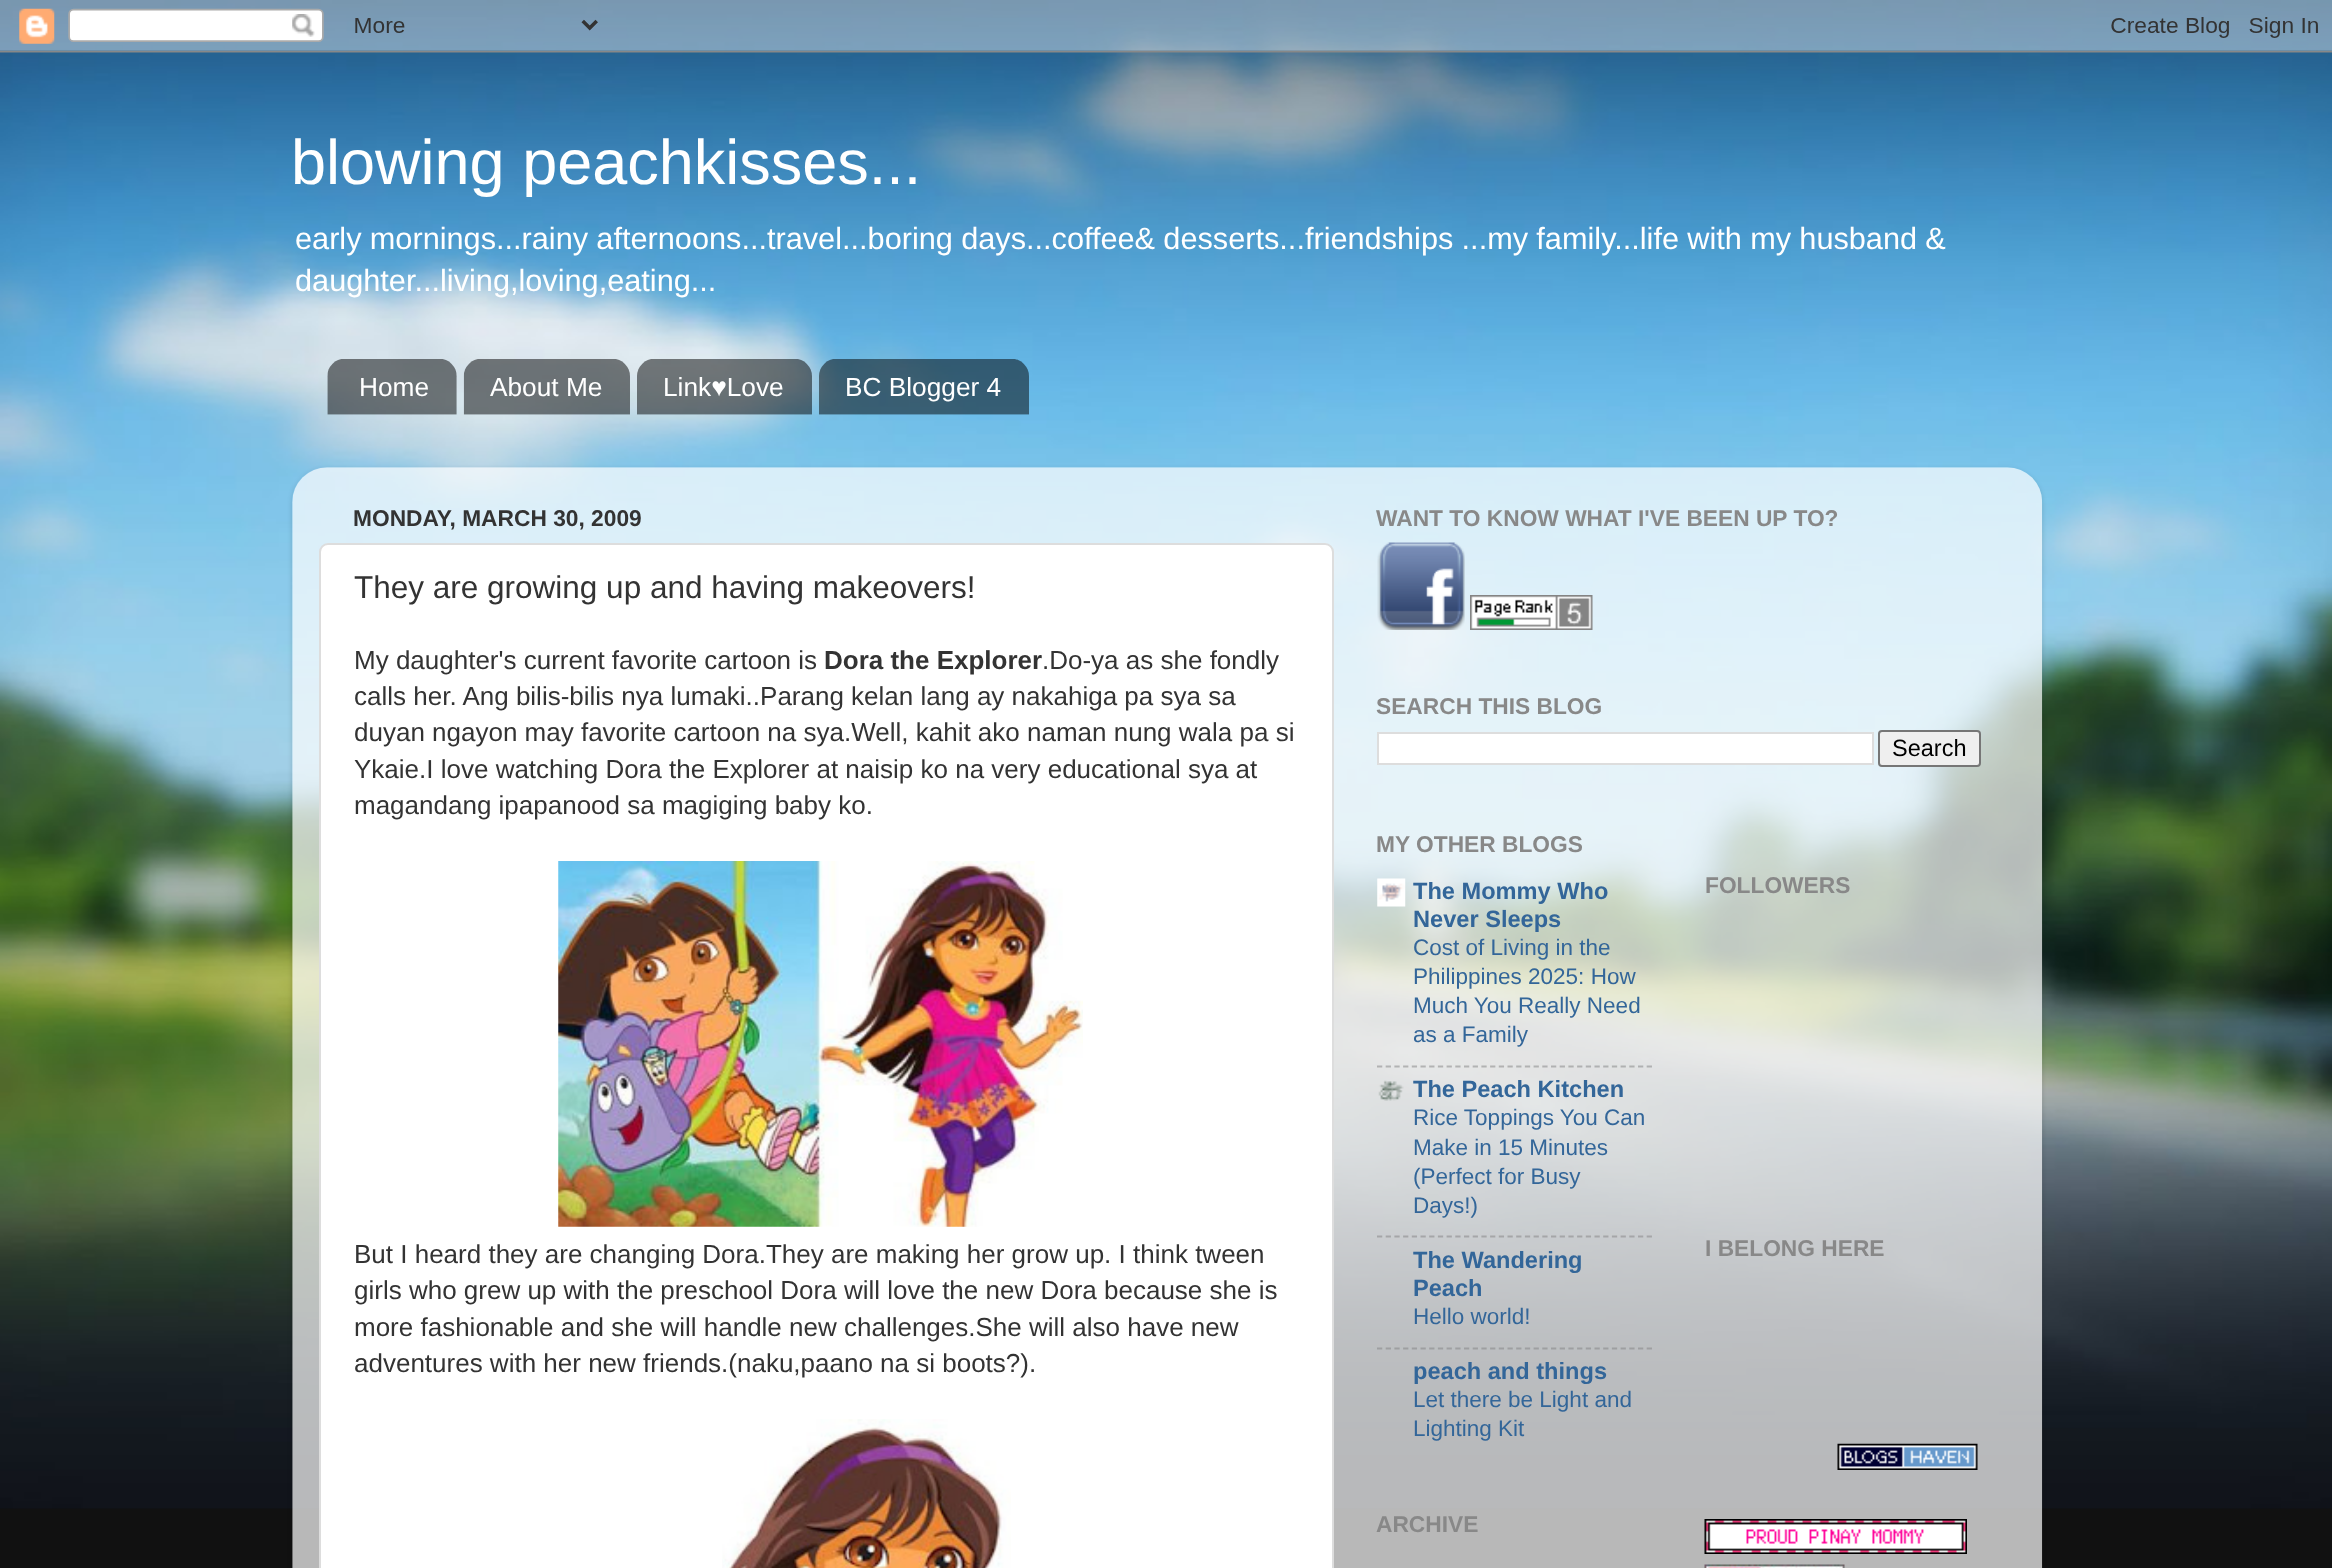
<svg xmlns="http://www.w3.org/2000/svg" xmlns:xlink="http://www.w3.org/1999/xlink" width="2332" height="1568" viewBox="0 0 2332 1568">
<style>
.cls-1{font:63px Liberation Sans;fill:#ffffff}
.cls-2{font:30.7px Liberation Sans;fill:#ffffff}
.cls-3{font:26.25px Liberation Sans;fill:#ffffff}
.cls-4{font:bold 22.75px Liberation Sans;fill:#333333}
.cls-5{font:31.5px Liberation Sans;fill:#333333}
.cls-6{font:26px Liberation Sans;fill:#333333}
.cls-7{font:bold 26px Liberation Sans;fill:#333333}
.cls-8{font:bold 22.75px Liberation Sans;fill:#888888}
.cls-9{font:23.5px Liberation Sans;fill:#000000}
.cls-10{font:bold 23.6px Liberation Sans;fill:#336699}
.cls-11{font:22.5px Liberation Sans;fill:#336699}
</style>
<defs>
<clipPath id="clip1"><path d="M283 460H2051V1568H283ZM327 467H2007C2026.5 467 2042 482.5 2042 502V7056H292V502C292 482.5 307.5 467 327 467Z" clip-rule="evenodd"/></clipPath>
</defs>
<rect width="100%" height="100%" fill="#111111"/>
<image xlink:href="image0.png" x="0" y="0" width="2332" height="1509"/>
<image xlink:href="image1.png" x="0" y="0" width="2332" height="53"/>
<image xlink:href="image2.png" x="327" y="359" width="130" height="56"/>
<image xlink:href="image3.png" x="463" y="359" width="167" height="56"/>
<image xlink:href="image4.png" x="637" y="359" width="175" height="56"/>
<image xlink:href="image5.png" x="819" y="359" width="210" height="56"/>
<g clip-path="url(#clip1)">
<rect fill="#000000" fill-opacity="0.15" filter="blur(2.5px)" x="292" y="469" width="1750" height="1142" rx="35"/>
</g>
<image xlink:href="image6.png" x="292" y="467" width="1751" height="1101"/>
<rect fill="#ffffff" stroke="#dddddd" stroke-width="2" x="320" y="544" width="1013" height="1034" rx="8"/>
<image xlink:href="image7.png" x="558" y="861" width="525" height="366"/>
<image xlink:href="image8.png" x="722" y="1419" width="289" height="149"/>
<image xlink:href="image9.png" x="1377" y="542" width="88" height="88"/>
<image xlink:href="image10.png" x="1470" y="595" width="123" height="35"/>
<rect fill="#ffffff" stroke="#dddddd" stroke-width="2" x="1378" y="733" width="495" height="31"/>
<rect fill="#efefef" stroke="#767676" stroke-width="2" x="1879" y="731" width="101" height="35" rx="3"/>
<image xlink:href="image11.png" x="1377" y="878" width="29" height="29"/>
<path fill="none" stroke="#808080" stroke-opacity="0.5" stroke-width="1.8" stroke-dasharray="5.25 3.45" d="M1377 1066.5H1652"/>
<image xlink:href="image12.png" x="1378" y="1080" width="26" height="21"/>
<path fill="none" stroke="#a5a6a8" stroke-width="1.8" stroke-dasharray="5.25 3.45" d="M1377 1236.5H1652"/>
<path fill="none" stroke="#9e9fa1" stroke-width="1.8" stroke-dasharray="5.25 3.45" d="M1377 1348.5H1652"/>
<image xlink:href="image13.png" x="1837" y="1443" width="141" height="27"/>
<image xlink:href="image14.png" x="1704" y="1519" width="263" height="35"/>
<image xlink:href="image15.png" x="1704" y="1564" width="141" height="4"/>
<text class="cls-1" x="291" y="184">blowing peachkisses...</text>
<text class="cls-2"><tspan x="295" y="249" word-spacing="-0.25">early mornings...rainy afternoons...travel...boring days...coffee&amp; desserts...friendships ...my family...life with my husband &amp;</tspan><tspan x="295" y="291">daughter...living,loving,eating...</tspan></text>
<text class="cls-3" x="359" y="396">Home</text>
<text class="cls-3" x="490" y="396">About Me</text>
<text class="cls-3" x="663" y="396">Link♥Love</text>
<text class="cls-3" x="845" y="396">BC Blogger 4</text>
<text class="cls-4" x="353" y="526">MONDAY, MARCH 30, 2009</text>
<text class="cls-5" x="354" y="598">They are growing up and having makeovers!</text>
<text class="cls-6" x="354" y="669">My daughter's current favorite cartoon is</text>
<text class="cls-7" x="824" y="669">Dora the Explorer</text>
<text class="cls-6" x="1042" y="669">.Do-ya as she fondly</text>
<text class="cls-6"><tspan x="354" y="705">calls her. Ang bilis-bilis nya lumaki..Parang kelan lang ay nakahiga pa sya sa</tspan><tspan x="354" y="741">duyan ngayon may favorite cartoon na sya.Well, kahit ako naman nung wala pa si</tspan><tspan x="354" y="778">Ykaie.I love watching Dora the Explorer at naisip ko na very educational sya at</tspan><tspan x="354" y="814">magandang ipapanood sa magiging baby ko.</tspan></text>
<text class="cls-6"><tspan x="354" y="1263">But I heard they are changing Dora.They are making her grow up. I think tween</tspan><tspan x="354" y="1299">girls who grew up with the preschool Dora will love the new Dora because she is</tspan><tspan x="354" y="1336">more fashionable and she will handle new challenges.She will also have new</tspan><tspan x="354" y="1372">adventures with her new friends.(naku,paano na si boots?).</tspan></text>
<text class="cls-8" x="1376" y="526">WANT TO KNOW WHAT I'VE BEEN UP TO?</text>
<text class="cls-8" x="1376" y="714">SEARCH THIS BLOG</text>
<text class="cls-9" x="1892" y="756">Search</text>
<text class="cls-8" x="1376" y="852">MY OTHER BLOGS</text>
<text class="cls-10"><tspan x="1413" y="899">The Mommy Who</tspan><tspan x="1413" y="927">Never Sleeps</tspan></text>
<text class="cls-11"><tspan x="1413" y="955">Cost of Living in the</tspan><tspan x="1413" y="984">Philippines 2025: How</tspan><tspan x="1413" y="1013">Much You Really Need</tspan><tspan x="1413" y="1042">as a Family</tspan></text>
<text class="cls-10" x="1413" y="1097">The Peach Kitchen</text>
<text class="cls-11"><tspan x="1413" y="1125">Rice Toppings You Can</tspan><tspan x="1413" y="1155">Make in 15 Minutes</tspan><tspan x="1413" y="1184">(Perfect for Busy</tspan><tspan x="1413" y="1213">Days!)</tspan></text>
<text class="cls-10"><tspan x="1413" y="1268">The Wandering</tspan><tspan x="1413" y="1296">Peach</tspan></text>
<text class="cls-11" x="1413" y="1324">Hello world!</text>
<text class="cls-10" x="1413" y="1379">peach and things</text>
<text class="cls-11"><tspan x="1413" y="1407">Let there be Light and</tspan><tspan x="1413" y="1436">Lighting Kit</tspan></text>
<text class="cls-8" x="1376" y="1532">ARCHIVE</text>
<text class="cls-8" x="1705" y="893">FOLLOWERS</text>
<text class="cls-8" x="1705" y="1256">I BELONG HERE</text>
</svg>
